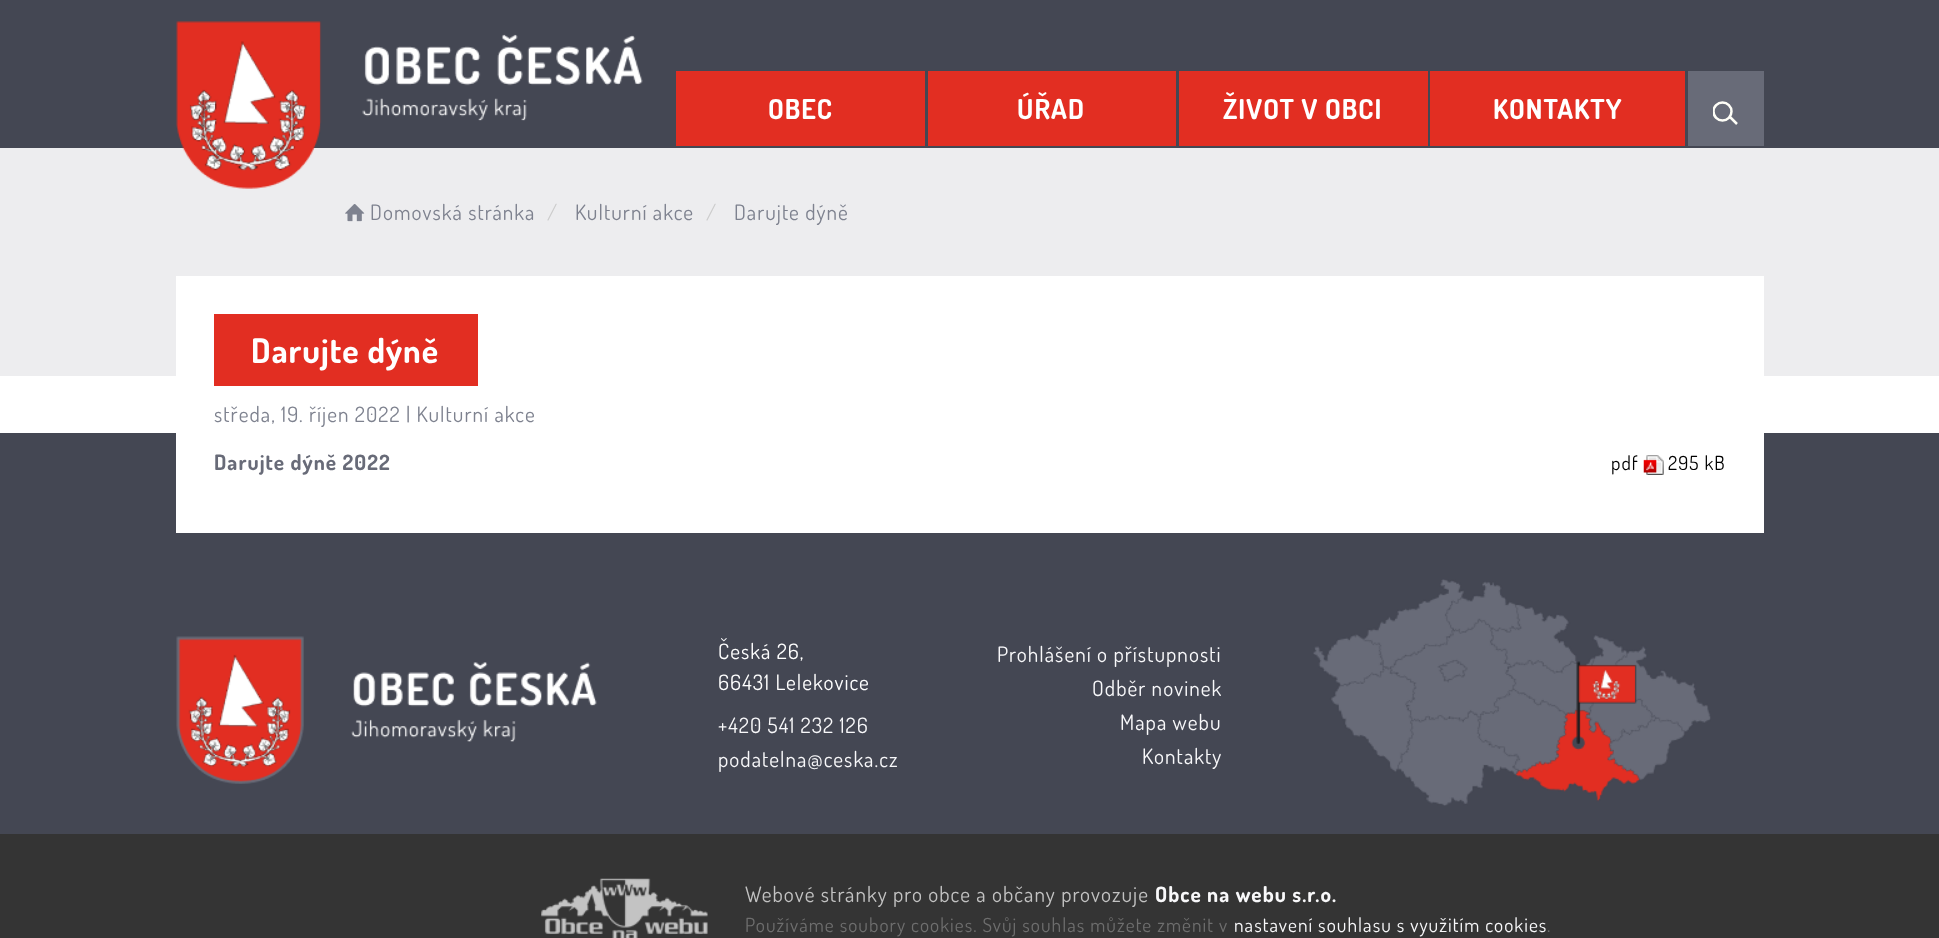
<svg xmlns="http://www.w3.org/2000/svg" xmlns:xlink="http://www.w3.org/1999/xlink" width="1939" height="938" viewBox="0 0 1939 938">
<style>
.cls-1{font:bold 27.5px Dosis;letter-spacing:1.05px;fill:#ffffff}
.cls-2{font:21.25px Dosis;letter-spacing:1.05px;fill:#7e828f}
.cls-3{font:21.25px Dosis;letter-spacing:1.05px;fill:#cccccc}
.cls-4{font:bold 33.75px Dosis;letter-spacing:1.05px;fill:#ffffff}
.cls-5{font:bold 21.25px Dosis;letter-spacing:1.05px;fill:#686b78}
.cls-6{font:19.35px Dosis;letter-spacing:1.05px;fill:#000000}
.cls-7{font:21.25px Dosis;letter-spacing:1.05px;fill:#ffffff}
.cls-8{font:21.25px Dosis;letter-spacing:1.05px;fill:#f8f8fa}
.cls-9{font:21.25px Dosis;letter-spacing:1.05px;fill:#c2c2c2}
.cls-10{font:bold 21.25px Dosis;letter-spacing:1.05px;fill:#f8f8fa}
.cls-11{font:19.35px Dosis;letter-spacing:1.05px;fill:#6e6e6e}
.cls-12{font:19.35px Dosis;letter-spacing:1.05px;fill:#f8f8fa}
</style>
<defs>
<clipPath id="clip1"><rect x="1713" y="100" width="26" height="25"/></clipPath>
</defs>
<rect width="100%" height="100%" fill="#ffffff"/>
<rect fill="#444753" x="0" y="0" width="1939" height="148"/>
<rect fill="#ededef" x="0" y="148" width="1939" height="228"/>
<image xlink:href="image0.png" x="176" y="21" width="467" height="168"/>
<rect fill="#e22e22" x="676" y="71" width="249" height="75"/>
<rect fill="#e22e22" x="928" y="71" width="248" height="75"/>
<rect fill="#e22e22" x="1179" y="71" width="249" height="75"/>
<rect fill="#e22e22" x="1430" y="71" width="255" height="75"/>
<rect fill="#686b78" x="1688" y="71" width="76" height="75"/>
<g clip-path="url(#clip1)">
<circle fill="none" stroke="#fffff8" stroke-width="2.5" cx="1722.5" cy="111.5" r="9"/>
</g>
<path fill="none" stroke="#fffff8" stroke-width="2.5" d="M1730 117L1737 124"/>
<image xlink:href="image1.png" x="345" y="204" width="20" height="18"/>
<rect fill="#444753" x="0" y="433" width="1939" height="401"/>
<rect fill="#ffffff" x="176" y="276" width="1588" height="257"/>
<rect fill="#e22e22" x="214" y="314" width="264" height="72"/>
<image xlink:href="image2.png" x="1643" y="455" width="21" height="20"/>
<image xlink:href="image3.png" x="176" y="636" width="421" height="148"/>
<image xlink:href="image4.png" x="1313" y="579" width="398" height="227"/>
<rect fill="#343434" x="0" y="834" width="1939" height="104"/>
<image xlink:href="image5.png" x="541" y="878" width="167" height="60"/>
<text class="cls-1" x="768" y="119">OBEC</text>
<text class="cls-1" x="1017" y="119">ÚŘAD</text>
<text class="cls-1" x="1223" y="119">ŽIVOT V OBCI</text>
<text class="cls-1" x="1493" y="119">KONTAKTY</text>
<text class="cls-2" x="370" y="220">Domovská stránka</text>
<text class="cls-3" x="547" y="220">/</text>
<text class="cls-2" x="575" y="220">Kulturní akce</text>
<text class="cls-3" x="706" y="220">/</text>
<text class="cls-2" x="734" y="220">Darujte dýně</text>
<text class="cls-4" x="251" y="363">Darujte dýně</text>
<text class="cls-2" x="214" y="422">středa, 19. říjen 2022 | Kulturní akce</text>
<text class="cls-5" x="214" y="470">Darujte dýně 2022</text>
<text class="cls-6" x="1611" y="470">pdf</text>
<text class="cls-6" x="1668" y="470">295 kB</text>
<text class="cls-7"><tspan x="718" y="659">Česká 26,</tspan><tspan x="718" y="690">66431 Lelekovice</tspan></text>
<text class="cls-8"><tspan x="718" y="733">+420 541 232 126</tspan><tspan x="718" y="767">podatelna@ceska.cz</tspan></text>
<text class="cls-8" x="997" y="662">Prohlášení o přístupnosti</text>
<text class="cls-8" x="1092" y="696">Odběr novinek</text>
<text class="cls-8" x="1120" y="730">Mapa webu</text>
<text class="cls-8" x="1142" y="764">Kontakty</text>
<text class="cls-9" x="745" y="902">Webové stránky pro obce a občany provozuje</text>
<text class="cls-10" x="1155" y="902">Obce na webu s.r.o.</text>
<text class="cls-11" x="745" y="932">Používáme soubory cookies. Svůj souhlas můžete změnit v</text>
<text class="cls-12" x="1234" y="932">nastavení souhlasu s využitím cookies</text>
<text class="cls-11" x="1547" y="932">.</text>
</svg>
